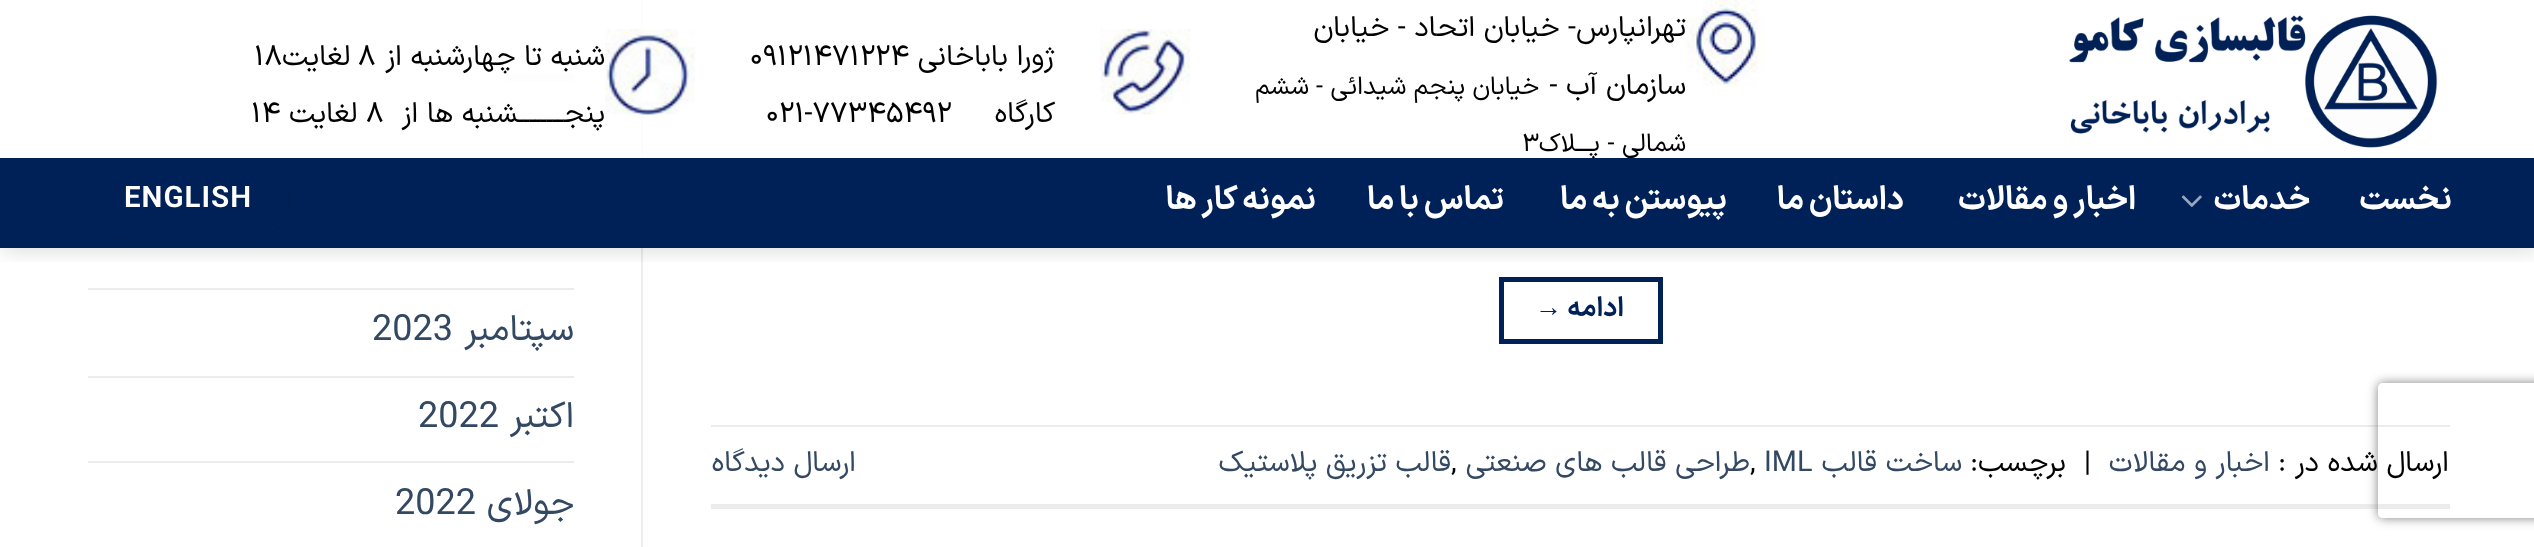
<svg xmlns="http://www.w3.org/2000/svg" xmlns:xlink="http://www.w3.org/1999/xlink" width="2534" height="547" viewBox="0 0 2534 547">
<style>
.cls-1{font:28.75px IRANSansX;direction:rtl;fill:#000000}
.cls-2{font:25.25px IRANSansX;direction:rtl;fill:#000000}
.cls-3{font:25.25px IRANSansX;fill:#000000}
.cls-4{font:28.75px IRANSansX;fill:#000000}
.cls-5{font:bold 32.5px IRANSansX;letter-spacing:0.6px;direction:rtl;fill:#ffffff}
.cls-6{font:bold 29.5px IRANSansX;letter-spacing:1px;fill:#ffffff}
.cls-7{font:bold 27px IRANSansX;letter-spacing:1px;direction:rtl;fill:#002157}
.cls-8{font:bold 27px Liberation Sans;letter-spacing:1px;fill:#002157}
.cls-9{font:28.75px IRANSansX;direction:rtl;fill:#334862}
.cls-10{font:28.75px IRANSansX;fill:#334862}
.cls-11{font:36px IRANSansX;direction:rtl;fill:#334862}
.cls-12{font:36px IRANSansX;fill:#334862}
</style>
<defs>
<clipPath id="clip1"><rect x="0" y="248" width="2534" height="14"/></clipPath>
<clipPath id="clip2"><path d="M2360 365H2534V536H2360ZM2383 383H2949C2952 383 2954 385 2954 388V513C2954 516 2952 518 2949 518H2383C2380 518 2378 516 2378 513V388C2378 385 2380 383 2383 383Z" clip-rule="evenodd"/></clipPath>
</defs>
<rect width="100%" height="100%" fill="#ffffff"/>
<rect fill="none" stroke="#002157" stroke-width="5" x="1501.5" y="279.5" width="159" height="62"/>
<rect fill="#ececec" x="641" y="0" width="2" height="547"/>
<rect fill="#e6e6e6" x="506" y="74" width="68" height="7"/>
<g clip-path="url(#clip1)">
<rect fill="#000000" fill-opacity="0.15" filter="blur(11px)" x="2" y="2" width="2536" height="248"/>
</g>
<rect fill="#ffffff" fill-opacity="0.9" x="506" y="0" width="137" height="158"/>
<image xlink:href="image0.png" x="2069" y="15" width="371" height="135"/>
<image xlink:href="image1.png" x="1685" y="0" width="91" height="86"/>
<image xlink:href="image2.png" x="1100" y="29" width="90" height="86"/>
<image xlink:href="image3.png" x="605" y="29" width="90" height="86"/>
<rect fill="#002157" x="0" y="158" width="2534" height="90"/>
<image xlink:href="image4.png" x="2181" y="195" width="21" height="12"/>
<rect fill="none" stroke="#001f53" stroke-width="2" x="89" y="165" width="200" height="75" rx="37.5"/>
<rect fill="#ececec" x="711" y="425" width="1739" height="2"/>
<rect fill="#ececec" x="711" y="504" width="1739" height="5"/>
<rect fill="#ececec" x="88" y="288" width="486" height="2"/>
<rect fill="#ececec" x="88" y="376" width="486" height="2"/>
<rect fill="#ececec" x="88" y="461" width="486" height="2"/>
<g clip-path="url(#clip2)">
<rect fill="#808080" filter="blur(5.5px)" x="2378" y="383" width="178" height="135" rx="5"/>
</g>
<text class="cls-1" x="1686" y="36">تهرانپارس- خیابان اتحاد - خیابان</text>
<text class="cls-1" x="1686" y="94">سازمان آب -</text>
<text class="cls-2" x="1539" y="94">خیابان پنجم شیدائی -</text>
<text class="cls-2" x="1309" y="94">ششم</text>
<text class="cls-2" x="1686" y="151">شمالی - پـــلاک</text>
<text class="cls-3" x="1522" y="151">۳</text>
<text class="cls-1" x="1055" y="65">ژورا باباخانی</text>
<text class="cls-4" x="750" y="65">۰۹۱۲۱۴۷۱۲۲۴</text>
<text class="cls-1" x="1055" y="122">کارگاه</text>
<text class="cls-4" x="766" y="122">۰۲۱-۷۷۳۴۵۴۹۲</text>
<text class="cls-1" x="605" y="65">شنبه تا چهارشنبه از</text>
<text class="cls-4" x="358" y="65">۸</text>
<text class="cls-1" x="350" y="65">لغایت</text>
<text class="cls-4" x="254" y="65">۱۸</text>
<text class="cls-1" x="605" y="122">پنجــــــــشنبه ها از</text>
<text class="cls-4" x="366" y="122">۸</text>
<text class="cls-1" x="357" y="122">لغایت</text>
<text class="cls-4" x="251" y="122">۱۴</text>
<text class="cls-5" x="2452" y="209">نخست</text>
<text class="cls-5" x="2310" y="209">خدمات</text>
<text class="cls-5" x="2136" y="209" word-spacing="-2">اخبار و مقالات</text>
<text class="cls-5" x="1904" y="209" word-spacing="-2">داستان ما</text>
<text class="cls-5" x="1727" y="209" word-spacing="-2">پیوستن به ما</text>
<text class="cls-5" x="1504" y="209" word-spacing="-2">تماس با ما</text>
<text class="cls-5" x="1316" y="209" word-spacing="-2">نمونه کار ها</text>
<text class="cls-6" x="124" y="207">ENGLISH</text>
<text class="cls-7" x="1624" y="316">ادامه</text>
<text class="cls-8" x="1535" y="316">→</text>
<text class="cls-1" x="2449" y="471">ارسال شده در :</text>
<text class="cls-9" x="2270" y="471">اخبار و مقالات</text>
<text class="cls-4" x="2084" y="471">|</text>
<text class="cls-1" x="2066" y="471">برچسب:</text>
<text class="cls-9" x="1962" y="471">ساخت قالب</text>
<text class="cls-10" x="1764" y="471">IML</text>
<text class="cls-4" x="1750" y="471">,</text>
<text class="cls-9" x="1750" y="471">طراحی قالب های صنعتی</text>
<text class="cls-4" x="1451" y="471">,</text>
<text class="cls-9" x="1451" y="471">قالب تزریق پلاستیک</text>
<text class="cls-9" x="856" y="471">ارسال دیدگاه</text>
<text class="cls-11" x="574" y="340">سپتامبر</text>
<text class="cls-12" x="372" y="340">2023</text>
<text class="cls-11" x="574" y="427">اکتبر</text>
<text class="cls-12" x="418" y="427">2022</text>
<text class="cls-11" x="574" y="514">جولای</text>
<text class="cls-12" x="395" y="514">2022</text>
</svg>
